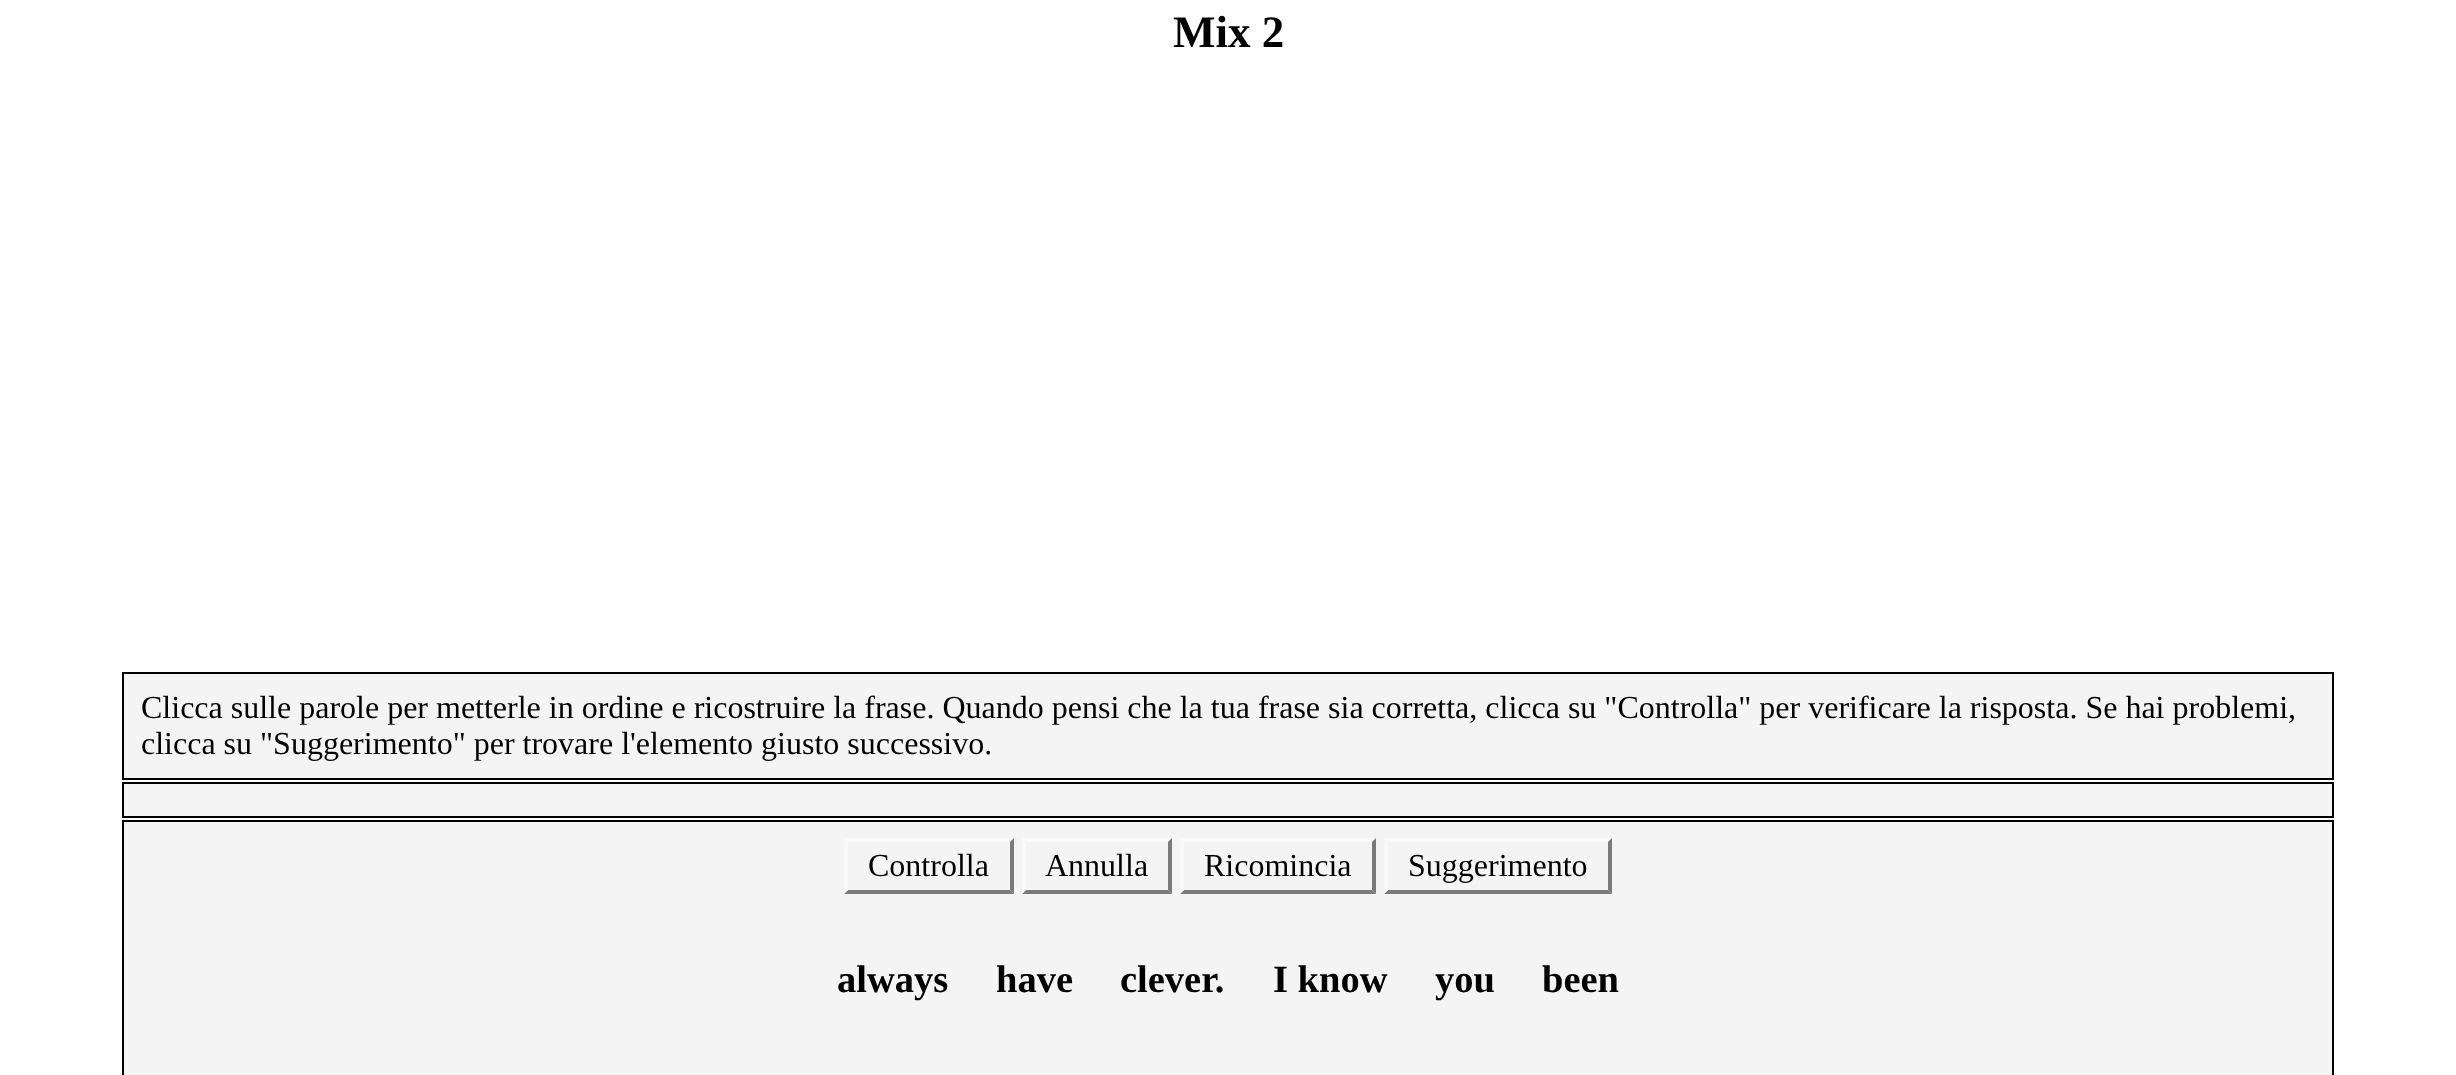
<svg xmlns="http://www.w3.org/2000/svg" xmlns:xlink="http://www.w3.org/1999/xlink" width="2456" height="1075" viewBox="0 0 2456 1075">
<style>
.cls-1{font:bold 45px Liberation Serif;fill:#000000}
.cls-2{font:32px Liberation Serif;fill:#000000}
.cls-3{font:bold 38.5px Liberation Serif;fill:#000000}
</style>
<rect width="100%" height="100%" fill="#ffffff"/>
<rect fill="#f4f4f4" stroke="#000000" stroke-width="2" x="123" y="673" width="2210" height="106"/>
<rect fill="#f4f4f4" stroke="#000000" stroke-width="2" x="123" y="783" width="2210" height="34"/>
<rect fill="#f4f4f4" stroke="#000000" stroke-width="2" x="123" y="821" width="2210" height="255"/>
<path fill="#f9f9f9" d="M844 838H1014L1010 842H848Z"/>
<path fill="#7a7a7a" d="M1014 838V894L1010 890V842Z"/>
<path fill="#7a7a7a" d="M1014 894H844L848 890H1010Z"/>
<path fill="#f9f9f9" d="M844 894V838L848 842V890Z"/>
<path fill="#f9f9f9" d="M1022 838H1172L1168 842H1026Z"/>
<path fill="#7a7a7a" d="M1172 838V894L1168 890V842Z"/>
<path fill="#7a7a7a" d="M1172 894H1022L1026 890H1168Z"/>
<path fill="#f9f9f9" d="M1022 894V838L1026 842V890Z"/>
<path fill="#f9f9f9" d="M1180 838H1376L1372 842H1184Z"/>
<path fill="#7a7a7a" d="M1376 838V894L1372 890V842Z"/>
<path fill="#7a7a7a" d="M1376 894H1180L1184 890H1372Z"/>
<path fill="#f9f9f9" d="M1180 894V838L1184 842V890Z"/>
<path fill="#f9f9f9" d="M1384 838H1612L1608 842H1388Z"/>
<path fill="#7a7a7a" d="M1612 838V894L1608 890V842Z"/>
<path fill="#7a7a7a" d="M1612 894H1384L1388 890H1608Z"/>
<path fill="#f9f9f9" d="M1384 894V838L1388 842V890Z"/>
<text class="cls-1" x="1173" y="47">Mix 2</text>
<text class="cls-2"><tspan x="141" y="718">Clicca sulle parole per metterle in ordine e ricostruire la frase. Quando pensi che la tua frase sia corretta, clicca su "Controlla" per verificare la risposta. Se hai problemi,</tspan><tspan x="141" y="754">clicca su "Suggerimento" per trovare l'elemento giusto successivo.</tspan></text>
<text class="cls-2" x="868" y="876">Controlla</text>
<text class="cls-2" x="1045" y="876">Annulla</text>
<text class="cls-2" x="1204" y="876">Ricomincia</text>
<text class="cls-2" x="1408" y="876">Suggerimento</text>
<text class="cls-3" x="837" y="992">always</text>
<text class="cls-3" x="996" y="992">have</text>
<text class="cls-3" x="1120" y="992">clever.</text>
<text class="cls-3" x="1273" y="992">I know</text>
<text class="cls-3" x="1435" y="992">you</text>
<text class="cls-3" x="1542" y="992">been</text>
</svg>
